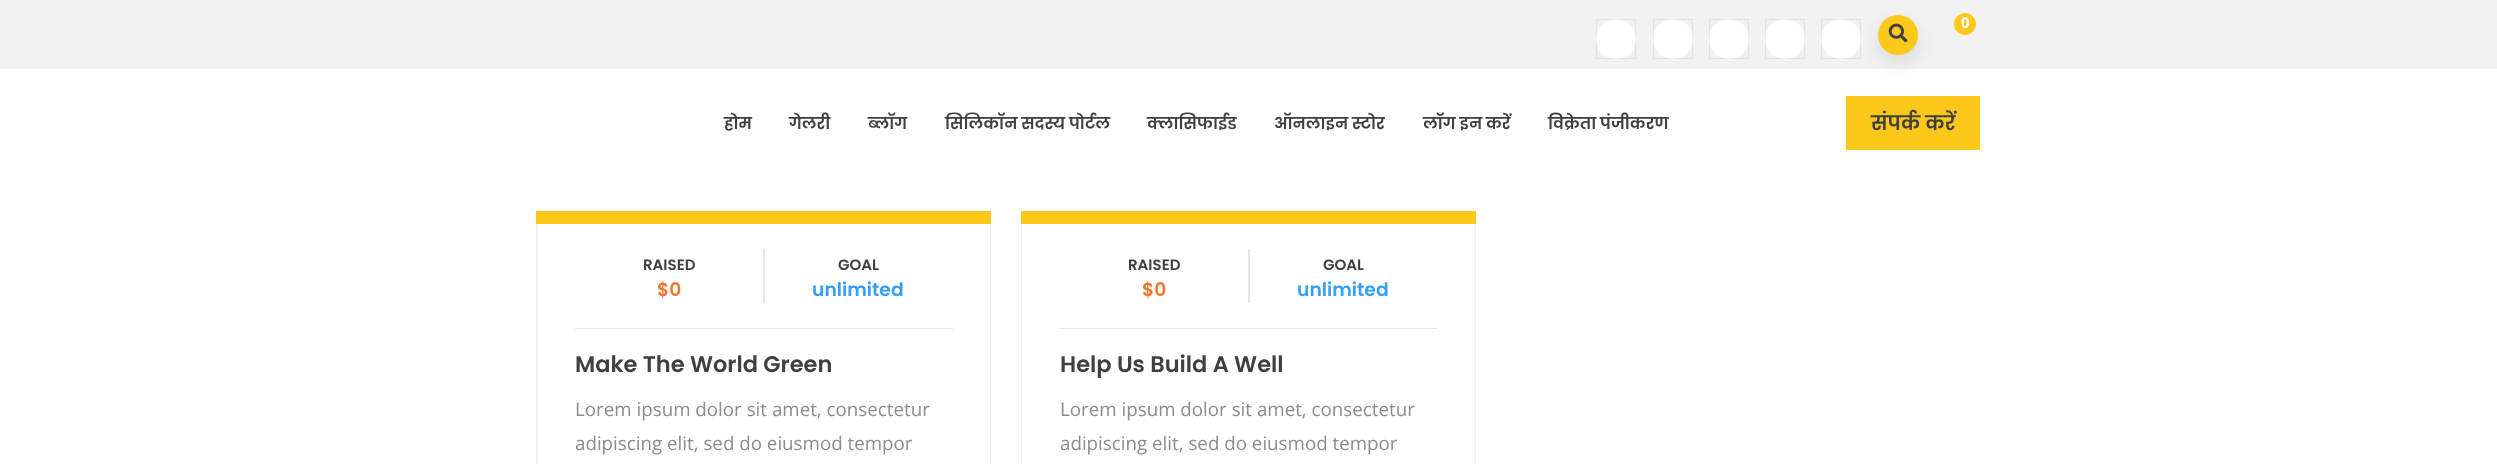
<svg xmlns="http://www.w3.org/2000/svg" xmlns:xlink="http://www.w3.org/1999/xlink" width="2497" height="464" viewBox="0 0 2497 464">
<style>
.cls-1{font:bold 15px Open Sans;fill:#ffffff}
.cls-2{font:600 16.25px Poppins;fill:#404040}
.cls-3{font:600 20px Poppins;fill:#404040}
.cls-4{font:600 15px Poppins;fill:#404040}
.cls-5{font:600 18.75px Poppins;fill:#f2752e}
.cls-6{font:600 18.75px Poppins;fill:#369ff4}
.cls-7{font:600 22.5px Poppins;fill:#404040}
.cls-8{font:18.75px Open Sans;fill:#8c8c8c}
</style>
<rect width="100%" height="100%" fill="#ffffff"/>
<rect fill="#f2f2f2" x="0" y="0" width="2497" height="69"/>
<circle fill="#ffffff" cx="1616" cy="39" r="20"/>
<rect fill="none" stroke="#000000" stroke-opacity="0.06" x="1596.5" y="19.5" width="39" height="39"/>
<circle fill="#ffffff" cx="1673" cy="39" r="20"/>
<rect fill="none" stroke="#000000" stroke-opacity="0.06" x="1653.5" y="19.5" width="39" height="39"/>
<circle fill="#ffffff" cx="1729" cy="39" r="20"/>
<rect fill="none" stroke="#000000" stroke-opacity="0.06" x="1709.5" y="19.5" width="39" height="39"/>
<circle fill="#ffffff" cx="1785" cy="39" r="20"/>
<rect fill="none" stroke="#000000" stroke-opacity="0.06" x="1765.5" y="19.5" width="39" height="39"/>
<circle fill="#ffffff" cx="1841" cy="39" r="20"/>
<rect fill="none" stroke="#000000" stroke-opacity="0.06" x="1821.5" y="19.5" width="39" height="39"/>
<rect fill="#000000" fill-opacity="0.1" filter="blur(9px)" x="1878" y="23" width="40" height="40" rx="20"/>
<circle fill="#fcc91b" cx="1898" cy="35" r="20"/>
<image xlink:href="image0.png" x="1888" y="23" width="20" height="20"/>
<circle fill="#fcc91b" cx="1965" cy="24" r="11"/>
<rect fill="#fcc91b" x="1846" y="96" width="134" height="54"/>
<rect fill="#fcc91b" x="536" y="211" width="455" height="13"/>
<path fill="#f0f0f0" d="M991 224V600L990 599V224Z"/>
<path fill="#f0f0f0" d="M536 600V224H538V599Z"/>
<rect fill="#e6e6e6" x="575" y="328" width="378" height="1"/>
<rect fill="#e6e6e6" x="763" y="249" width="2" height="54"/>
<rect fill="#fcc91b" x="1021" y="211" width="455" height="13"/>
<path fill="#f0f0f0" d="M1476 224V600L1475 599V224Z"/>
<path fill="#f0f0f0" d="M1021 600V224H1022V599Z"/>
<rect fill="#e6e6e6" x="1060" y="328" width="378" height="1"/>
<rect fill="#e6e6e6" x="1248" y="249" width="2" height="54"/>
<text class="cls-1" x="1961" y="28">0</text>
<text class="cls-2" x="724" y="129">होम</text>
<text class="cls-2" x="789" y="129">गेलरी</text>
<text class="cls-2" x="868" y="129">ब्लॉग</text>
<text class="cls-2" x="945" y="129">सिलिकॉन सदस्य पोर्टल</text>
<text class="cls-2" x="1147" y="129">क्लासिफाईड</text>
<text class="cls-2" x="1274" y="129">ऑनलाइन स्टोर</text>
<text class="cls-2" x="1423" y="129">लॉग इन करें</text>
<text class="cls-2" x="1548" y="129">विक्रेता पंजीकरण</text>
<text class="cls-3" x="1871" y="130">संपर्क करें</text>
<text class="cls-4" x="643" y="270">RAISED</text>
<text class="cls-5" x="657" y="296">$0</text>
<text class="cls-4" x="838" y="270">GOAL</text>
<text class="cls-6" x="812" y="296">unlimited</text>
<text class="cls-7" x="575" y="372">Make The World Green</text>
<text class="cls-8"><tspan x="575" y="416">Lorem ipsum dolor sit amet, consectetur</tspan><tspan x="575" y="450">adipiscing elit, sed do eiusmod tempor</tspan></text>
<text class="cls-4" x="1128" y="270">RAISED</text>
<text class="cls-5" x="1142" y="296">$0</text>
<text class="cls-4" x="1323" y="270">GOAL</text>
<text class="cls-6" x="1297" y="296">unlimited</text>
<text class="cls-7" x="1060" y="372">Help Us Build A Well</text>
<text class="cls-8"><tspan x="1060" y="416">Lorem ipsum dolor sit amet, consectetur</tspan><tspan x="1060" y="450">adipiscing elit, sed do eiusmod tempor</tspan></text>
</svg>
